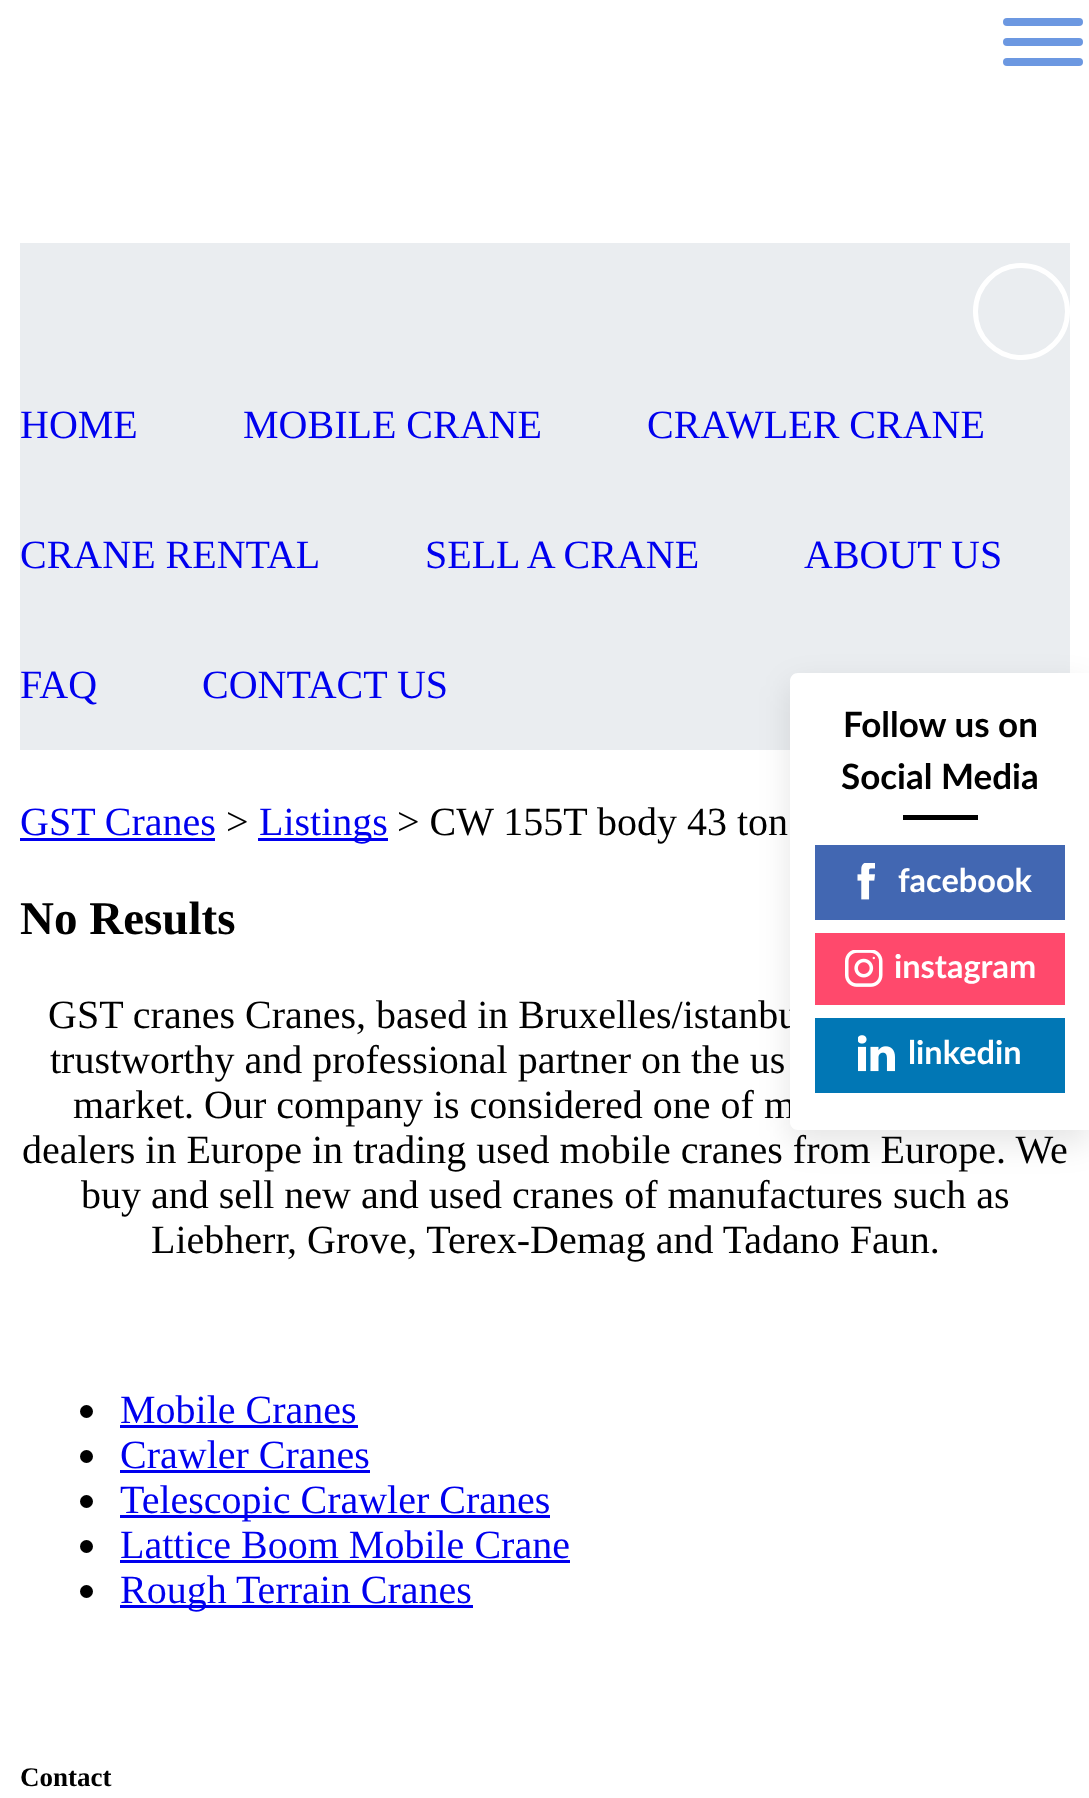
<svg xmlns="http://www.w3.org/2000/svg" xmlns:xlink="http://www.w3.org/1999/xlink" width="1089" height="1798" viewBox="0 0 1089 1798">
<style>
.cls-1{font:40px Liberation Serif;fill:#0000ee}
.cls-2{font:40px Liberation Serif;fill:#000000}
.cls-3{font:bold 47px Liberation Serif;fill:#000000}
.cls-4{font:bold 32.5px Lato;fill:#ffffff}
.cls-5{font:bold 35px Lato;fill:#000000}
.cls-6{font:bold 27px Liberation Serif;fill:#000000}
</style>
<rect width="100%" height="100%" fill="#ffffff"/>
<rect fill="#6c98e1" x="1003" y="18" width="80" height="8" rx="4"/>
<rect fill="#6c98e1" x="1003" y="38" width="80" height="8" rx="4"/>
<rect fill="#6c98e1" x="1003" y="58" width="80" height="8" rx="4"/>
<rect fill="#eaedf0" x="20" y="243" width="1050" height="507"/>
<circle fill="none" stroke="#ffffff" stroke-width="5" cx="1021.5" cy="311.5" r="46"/>
<rect fill="#0000ee" x="20" y="838" width="195" height="3"/>
<rect fill="#0000ee" x="258" y="838" width="130" height="3"/>
<rect fill="#000000" fill-opacity="0.1" filter="blur(16px)" x="790" y="685" width="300" height="458" rx="8"/>
<circle fill="#000000" cx="86.5" cy="1411.5" r="6.5"/>
<rect fill="#0000ee" x="120" y="1425" width="238" height="3"/>
<circle fill="#000000" cx="86.5" cy="1456.5" r="6.5"/>
<rect fill="#0000ee" x="120" y="1470" width="250" height="3"/>
<circle fill="#000000" cx="86.5" cy="1501.5" r="6.5"/>
<rect fill="#0000ee" x="120" y="1515" width="430" height="3"/>
<circle fill="#000000" cx="86.5" cy="1546.5" r="6.5"/>
<rect fill="#0000ee" x="120" y="1560" width="450" height="3"/>
<circle fill="#000000" cx="86.5" cy="1591.5" r="6.5"/>
<rect fill="#0000ee" x="120" y="1605" width="353" height="3"/>
<text class="cls-1" x="20" y="438">HOME</text>
<text class="cls-1" x="243" y="438">MOBILE CRANE</text>
<text class="cls-1" x="647" y="438">CRAWLER CRANE</text>
<text class="cls-1" x="20" y="568">CRANE RENTAL</text>
<text class="cls-1" x="425" y="568">SELL A CRANE</text>
<text class="cls-1" x="804" y="568">ABOUT US</text>
<text class="cls-1" x="20" y="698">FAQ</text>
<text class="cls-1" x="202" y="698">CONTACT US</text>
<text class="cls-1" x="20" y="835">GST Cranes</text>
<text class="cls-2" x="226" y="835">&gt;</text>
<text class="cls-1" x="259" y="835">Listings</text>
<text class="cls-2" x="397" y="835">&gt; CW 155T body 43 ton</text>
<text class="cls-3" x="20" y="934">No Results</text>
<text class="cls-2" x="48" y="1028">GST cranes Cranes, based in Bruxelles/istanbu</text>
<text class="cls-2" x="50" y="1073">trustworthy and professional partner on the us</text>
<text class="cls-2" x="73" y="1118">market. Our company is considered one of m</text>
<path fill="#ffffff" d="M798 673H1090V1130H798C793.5 1130 790 1126.5 790 1122V681C790 676.5 793.5 673 798 673Z"/>
<rect fill="#0177b5" x="815" y="1018" width="250" height="75"/>
<image xlink:href="image2.png" x="858" y="1035" width="37" height="37"/>
<rect fill="#ff496c" x="815" y="933" width="250" height="72"/>
<image xlink:href="image1.png" x="845" y="950" width="38" height="37"/>
<rect fill="#4267b2" x="815" y="845" width="250" height="75"/>
<image xlink:href="image0.png" x="857" y="863" width="18" height="37"/>
<text class="cls-4" x="908" y="1064">linkedin</text>
<text class="cls-4" x="894" y="978">instagram</text>
<text class="cls-4" x="898" y="892">facebook</text>
<text class="cls-5" x="841" y="789">Social Media</text>
<text class="cls-5" x="843" y="737">Follow us on</text>
<rect fill="#000000" x="903" y="815" width="75" height="5"/>
<text class="cls-2" x="22" y="1163">dealers in Europe in trading used mobile cranes from Europe. We</text>
<text class="cls-2" x="81" y="1208">buy and sell new and used cranes of manufactures such as</text>
<text class="cls-2" x="151" y="1253">Liebherr, Grove, Terex-Demag and Tadano Faun.</text>
<text class="cls-1"><tspan x="120" y="1423">Mobile Cranes</tspan><tspan x="120" y="1468">Crawler Cranes</tspan><tspan x="120" y="1513">Telescopic Crawler Cranes</tspan><tspan x="120" y="1558">Lattice Boom Mobile Crane</tspan><tspan x="120" y="1603">Rough Terrain Cranes</tspan></text>
<text class="cls-6" x="20" y="1786">Contact</text>
</svg>
